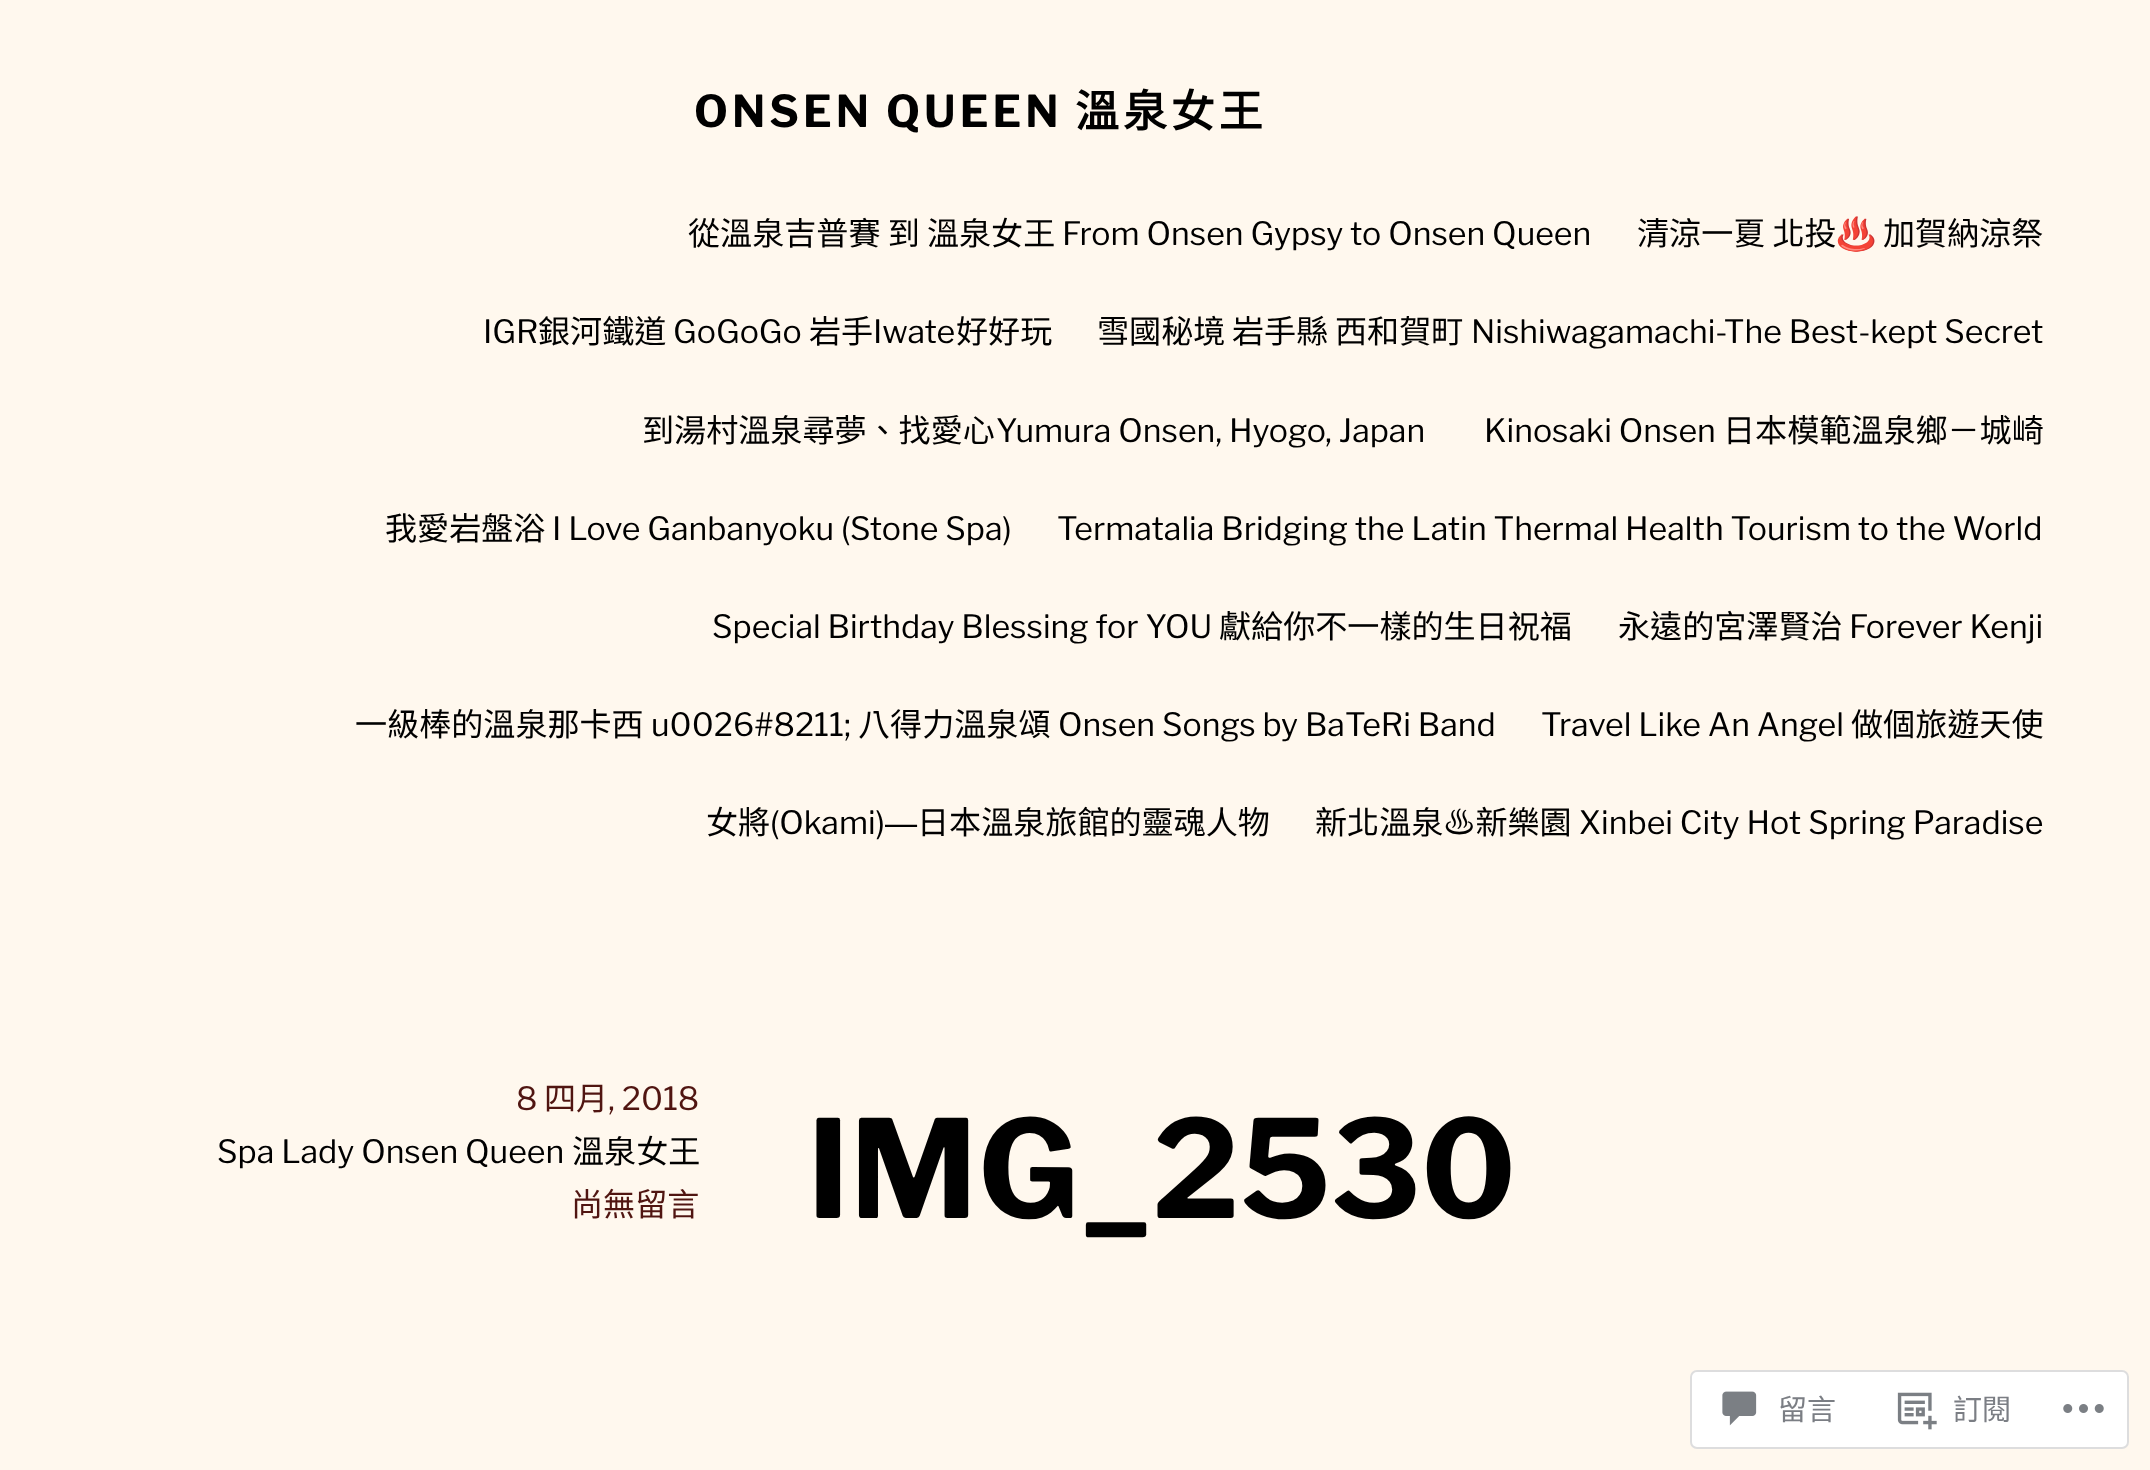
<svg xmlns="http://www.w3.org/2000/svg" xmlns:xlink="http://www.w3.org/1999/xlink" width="2150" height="1470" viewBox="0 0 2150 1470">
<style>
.cls-1{font:bold 43.9px Libre Franklin;letter-spacing:4px;fill:#000000}
.cls-2{font:bold 43.9px Noto Sans CJK TC;letter-spacing:4px;fill:#000000}
.cls-3{font:32.1px Noto Sans CJK TC;fill:#000000}
.cls-4{font:32.1px Libre Franklin;fill:#000000}
.cls-5{font:32.1px Noto Color Emoji;fill:#000000}
.cls-6{font:32.1px Liberation Sans;fill:#000000}
.cls-7{font:32.1px Libre Franklin;fill:#501511}
.cls-8{font:32.1px Noto Sans CJK TC;fill:#501511}
.cls-9{font:bold 135px Libre Franklin;fill:#000000}
.cls-10{font:29px Noto Sans CJK TC;fill:#7b7e84}
</style>
<rect width="100%" height="100%" fill="#fff8ee"/>
<rect fill="#ffffff" stroke="#ddddde" stroke-width="2" x="1691" y="1371" width="437" height="77" rx="6"/>
<image xlink:href="image0.png" x="1722" y="1391" width="35" height="35"/>
<image xlink:href="image1.png" x="1897" y="1392" width="40" height="38"/>
<image xlink:href="image2.png" x="2063" y="1404" width="41" height="9"/>
<text class="cls-1" x="694" y="127">ONSEN QUEEN</text>
<text class="cls-2" x="1075" y="127">溫泉女王</text>
<text class="cls-3" x="688" y="245">從溫泉吉普賽 到 溫泉女王</text>
<text class="cls-4" x="1062" y="245">From Onsen Gypsy to Onsen Queen</text>
<text class="cls-3" x="1637" y="245">清涼一夏 北投</text>
<text class="cls-5" x="1836" y="245">♨️</text>
<text class="cls-3" x="1883" y="245">加賀納涼祭</text>
<text class="cls-4" x="483" y="343">IGR</text>
<text class="cls-3" x="538" y="343">銀河鐵道</text>
<text class="cls-4" x="673" y="343">GoGoGo</text>
<text class="cls-3" x="809" y="343">岩手</text>
<text class="cls-4" x="873" y="343">Iwate</text>
<text class="cls-3" x="956" y="343">好好玩</text>
<text class="cls-3" x="1097" y="343">雪國秘境</text>
<text class="cls-3" x="1232" y="343">岩手縣</text>
<text class="cls-3" x="1335" y="343">西和賀町</text>
<text class="cls-4" x="1471" y="343">Nishiwagamachi-The Best-kept Secret</text>
<text class="cls-3" x="642" y="442">到湯村溫泉尋夢、找愛心</text>
<text class="cls-4" x="996" y="442">Yumura Onsen, Hyogo, Japan</text>
<text class="cls-4" x="1484" y="442">Kinosaki Onsen</text>
<text class="cls-3" x="1723" y="442">日本模範溫泉鄉－城崎</text>
<text class="cls-3" x="385" y="540">我愛岩盤浴</text>
<text class="cls-4" x="552" y="540">I Love Ganbanyoku (Stone Spa)</text>
<text class="cls-4" x="1057" y="540">Termatalia Bridging the Latin Thermal Health Tourism to the World</text>
<text class="cls-4" x="712" y="638">Special Birthday Blessing for YOU</text>
<text class="cls-3" x="1219" y="638">獻給你不一樣的生日祝福</text>
<text class="cls-3" x="1618" y="638">永遠的宮澤賢治</text>
<text class="cls-4" x="1849" y="638">Forever Kenji</text>
<text class="cls-3" x="355" y="736">一級棒的溫泉那卡西</text>
<text class="cls-4" x="651" y="736">u0026#8211;</text>
<text class="cls-3" x="858" y="736">八得力溫泉頌</text>
<text class="cls-4" x="1058" y="736">Onsen Songs by BaTeRi Band</text>
<text class="cls-4" x="1541" y="736">Travel Like An Angel</text>
<text class="cls-3" x="1851" y="736">做個旅遊天使</text>
<text class="cls-3" x="706" y="834">女將</text>
<text class="cls-4" x="770" y="834">(Okami)</text>
<text class="cls-6" x="885" y="834">―</text>
<text class="cls-3" x="917" y="834">日本溫泉旅館的靈魂人物</text>
<text class="cls-3" x="1315" y="834">新北溫泉♨新樂園</text>
<text class="cls-4" x="1579" y="834">Xinbei City Hot Spring Paradise</text>
<text class="cls-7" x="516" y="1110">8</text>
<text class="cls-8" x="544" y="1110">四月</text>
<text class="cls-7" x="608" y="1110">, 2018</text>
<text class="cls-4" x="217" y="1163">Spa Lady Onsen Queen</text>
<text class="cls-3" x="572" y="1163">溫泉女王</text>
<text class="cls-8" x="571" y="1216">尚無留言</text>
<text class="cls-9" x="807" y="1218">IMG_2530</text>
<text class="cls-10" x="1778" y="1420">留言</text>
<text class="cls-10" x="1953" y="1420">訂閱</text>
</svg>
